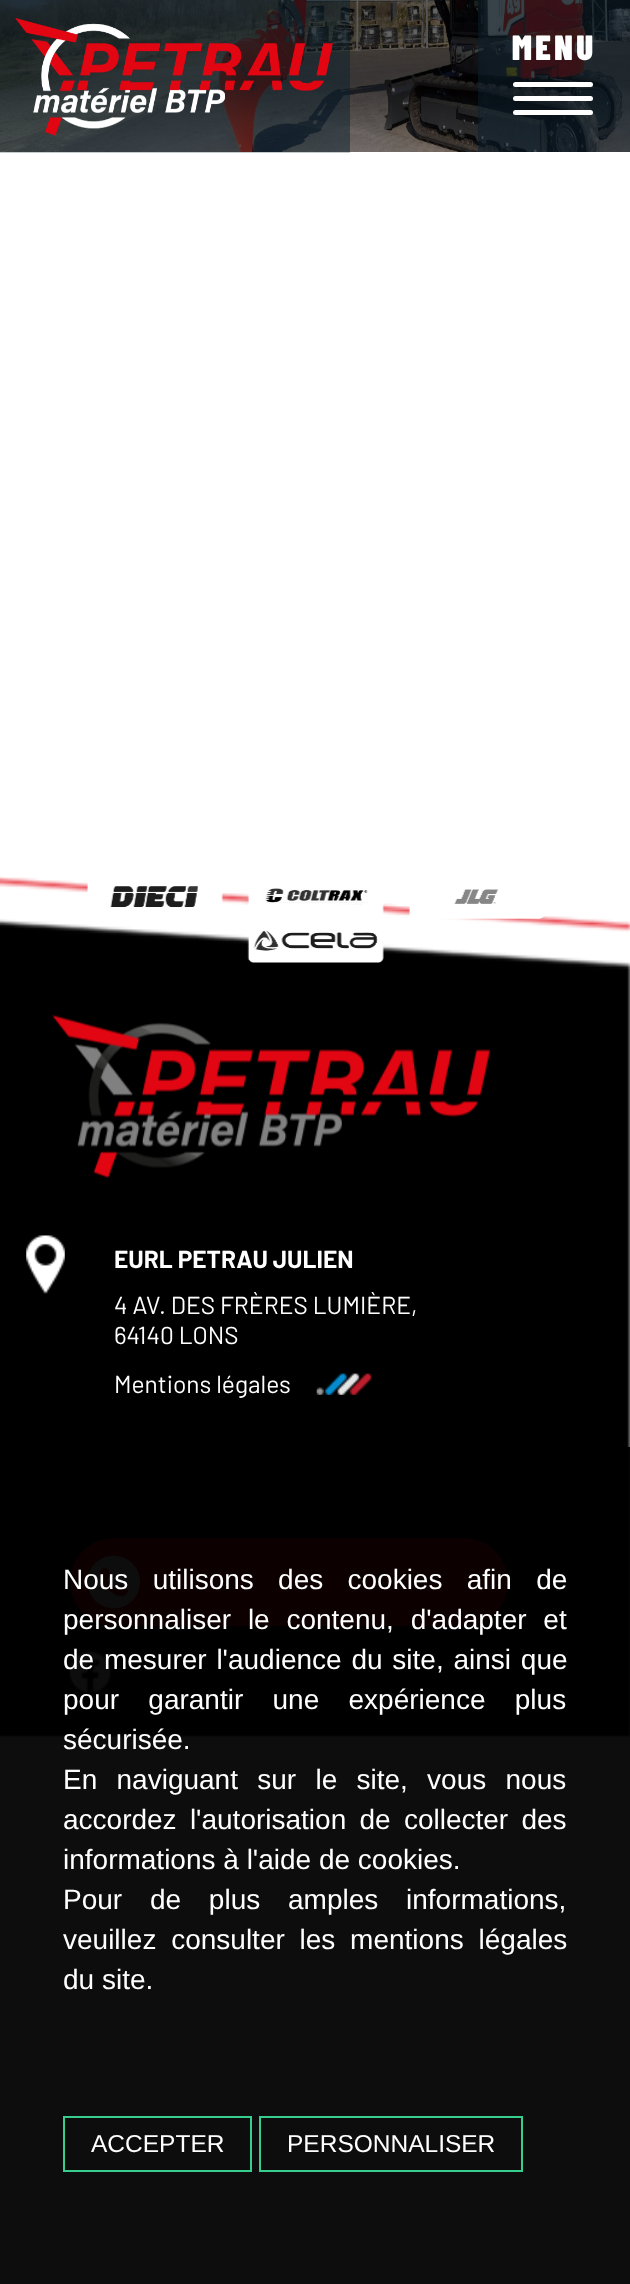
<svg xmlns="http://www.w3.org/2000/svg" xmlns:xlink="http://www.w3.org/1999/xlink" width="630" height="2284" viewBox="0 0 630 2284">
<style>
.cls-1{font:900 35px Barlow Condensed;letter-spacing:3.5px;fill:#ffffff}
.cls-2{font:bold 24.5px Barlow;fill:#ffffff}
.cls-3{font:24.5px Barlow;fill:#ffffff}
.cls-4{font:28px Liberation Sans;fill:#ffffff}
.cls-5{font:24.5px Liberation Sans;fill:#ffffff}
</style>
<rect width="100%" height="100%" fill="#ffffff"/>
<image xlink:href="image0.png" x="0" y="0" width="630" height="152"/>
<image xlink:href="image1.png" x="0" y="0" width="350" height="153"/>
<rect fill="#0b202d" fill-opacity="0.5" x="478" y="0" width="152" height="152"/>
<rect fill="#ffffff" x="513" y="82" width="80" height="5" rx="2.5"/>
<rect fill="#ffffff" x="513" y="96" width="80" height="5" rx="2.5"/>
<rect fill="#ffffff" x="513" y="110" width="80" height="5" rx="2.5"/>
<image xlink:href="image2.png" x="0" y="876" width="630" height="861"/>
<image xlink:href="image3.png" x="86" y="882" width="137" height="26"/>
<image xlink:href="image4.png" x="247" y="888" width="137" height="27"/>
<image xlink:href="image5.png" x="408" y="889" width="136" height="30"/>
<image xlink:href="image6.png" x="247" y="930" width="137" height="33"/>
<image xlink:href="image7.png" x="52" y="1014" width="438" height="164"/>
<image xlink:href="image8.png" x="26" y="1235" width="39" height="59"/>
<image xlink:href="image9.png" x="316" y="1373" width="56" height="22"/>
<rect fill="#e30613" x="70" y="1538" width="438" height="88" rx="44"/>
<image xlink:href="image10.png" x="87" y="1555" width="53" height="54"/>
<image xlink:href="image11.png" x="70" y="1651" width="41" height="42"/>
<rect fill="#000000" fill-opacity="0.95" x="0" y="1447" width="630" height="837"/>
<rect fill="none" stroke="#37cd8f" stroke-width="2" x="64" y="2117" width="187" height="54"/>
<rect fill="none" stroke="#37cd8f" stroke-width="2" x="260" y="2117" width="262" height="54"/>
<text class="cls-1" x="512" y="60">MENU</text>
<text class="cls-2" x="114" y="1268">EURL PETRAU JULIEN</text>
<text class="cls-3"><tspan x="114" y="1314">4 AV. DES FRÈRES LUMIÈRE,</tspan><tspan x="114" y="1344">64140 LONS</tspan></text>
<text class="cls-3" x="114" y="1393">Mentions légales</text>
<text class="cls-4"><tspan x="63" y="1589" word-spacing="16.5">Nous utilisons des cookies afin de</tspan><tspan x="63" y="1629" word-spacing="9">personnaliser le contenu, d'adapter et</tspan><tspan x="63" y="1669" word-spacing="2">de mesurer l'audience du site, ainsi que</tspan><tspan x="63" y="1709" word-spacing="21.5">pour garantir une expérience plus</tspan><tspan x="63" y="1749">sécurisée.</tspan><tspan x="63" y="1789" word-spacing="11.5">En naviguant sur le site, vous nous</tspan><tspan x="63" y="1829" word-spacing="5.5">accordez l'autorisation de collecter des</tspan><tspan x="63" y="1869">informations à l'aide de cookies.</tspan><tspan x="63" y="1909" word-spacing="20">Pour de plus amples informations,</tspan><tspan x="63" y="1949" word-spacing="7">veuillez consulter les mentions légales</tspan><tspan x="63" y="1989">du site.</tspan></text>
<text class="cls-5" x="91" y="2152">ACCEPTER</text>
<text class="cls-5" x="287" y="2152">PERSONNALISER</text>
</svg>
